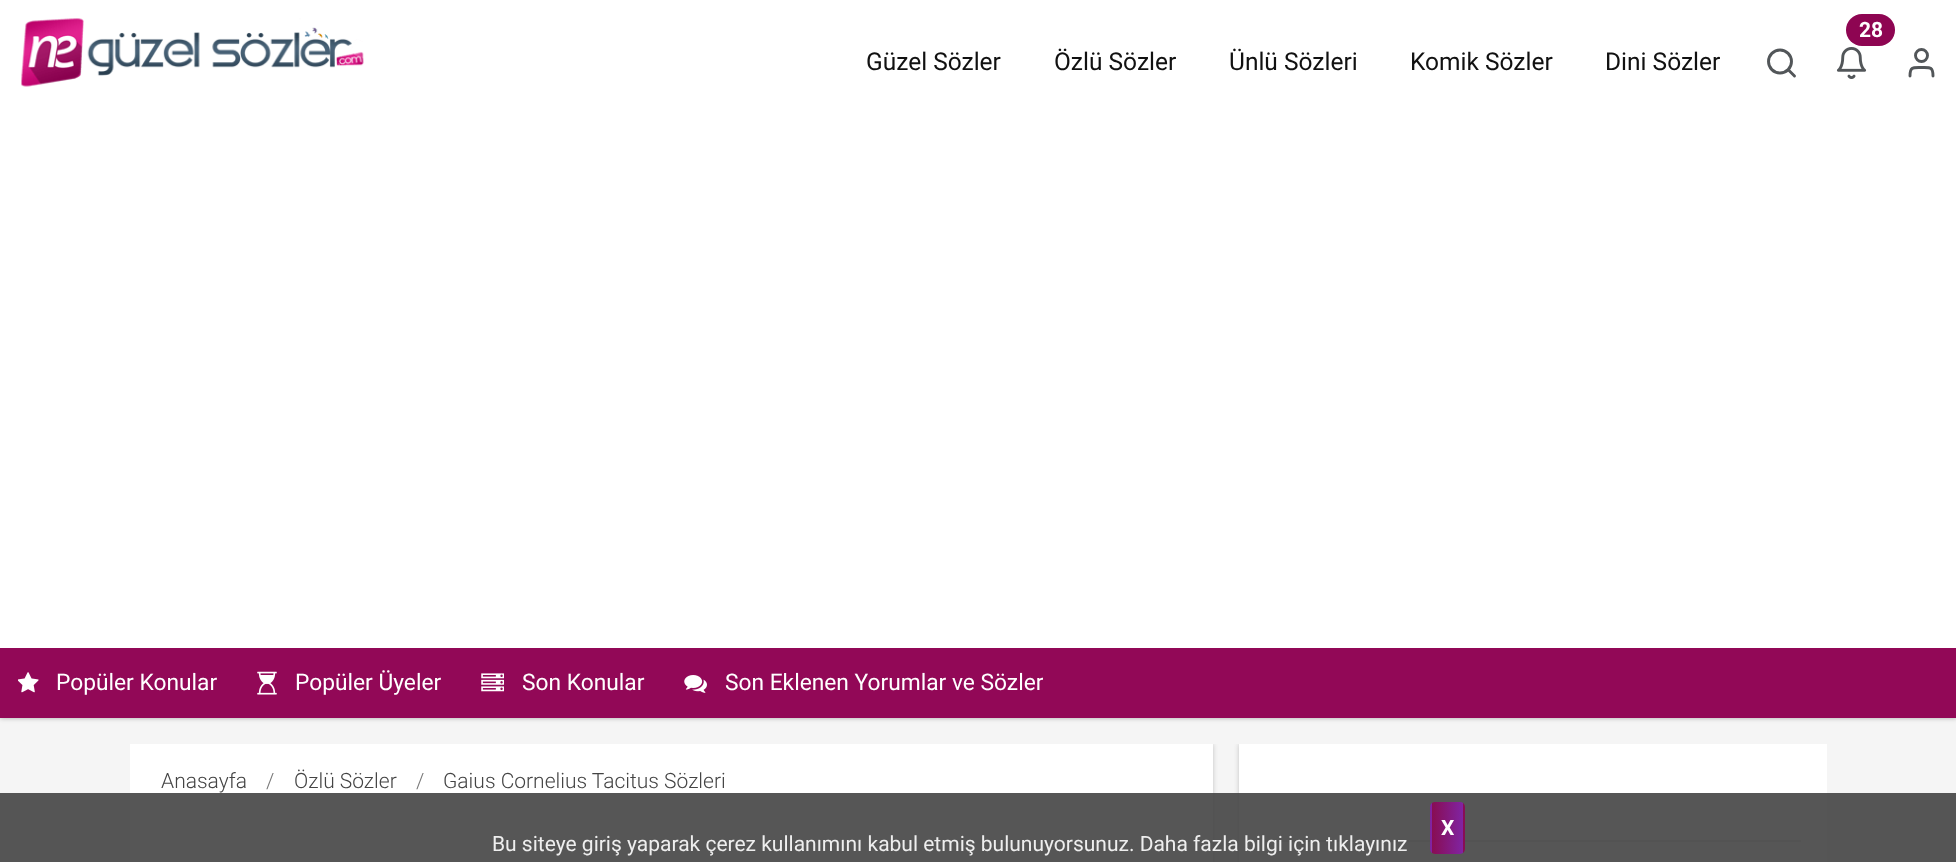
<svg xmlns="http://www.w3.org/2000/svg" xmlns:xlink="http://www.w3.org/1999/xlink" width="1956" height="862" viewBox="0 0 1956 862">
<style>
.cls-1{font:bold 21px Roboto;fill:#ffffff}
.cls-2{font:24.5px Roboto;fill:#111111}
.cls-3{font:22.75px Roboto;fill:#ffffff}
.cls-4{font:300 21px Roboto;fill:#444444}
.cls-5{font:300 21px Roboto;fill:#777777}
.cls-6{font:21px Roboto;fill:#eeeeee}
</style>
<defs>
<clipPath id="clip1"><rect x="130" y="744" width="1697" height="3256"/></clipPath>
<clipPath id="clip2"><rect x="1430" y="802" width="35" height="52" rx="5"/></clipPath>
<linearGradient id="g1" gradientUnits="userSpaceOnUse" x1="1432" y1="828" x2="1400" y2="828"><stop offset="0.01" stop-color="#851eaa" stop-opacity="0.9"/><stop offset="1" stop-color="#8e0552" stop-opacity="0.9"/></linearGradient>
<linearGradient id="g2" gradientUnits="userSpaceOnUse" x1="1463" y1="828" x2="1432" y2="828"><stop offset="0.01" stop-color="#851eaa" stop-opacity="0.9"/><stop offset="1" stop-color="#8e0552" stop-opacity="0.9"/></linearGradient>
<linearGradient id="g3" gradientUnits="userSpaceOnUse" x1="1495" y1="828" x2="1463" y2="828"><stop offset="0.01" stop-color="#851eaa" stop-opacity="0.9"/><stop offset="1" stop-color="#8e0552" stop-opacity="0.9"/></linearGradient>
<clipPath id="clip3"><rect x="684" y="665" width="359" height="35"/></clipPath>
</defs>
<rect width="100%" height="100%" fill="#f5f5f5"/>
<rect fill="#000000" fill-opacity="0.3" filter="blur(2.5px)" x="0" y="0" width="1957" height="718"/>
<rect fill="#ffffff" x="0" y="0" width="1956" height="648"/>
<image xlink:href="image0.png" x="21" y="18" width="343" height="69"/>
<rect fill="#8e0552" x="1846" y="14" width="49" height="32" rx="16"/>
<image xlink:href="image1.png" x="1836" y="47" width="31" height="32"/>
<circle fill="none" stroke="#525659" stroke-width="2.9" cx="1780" cy="61.5" r="11.5"/>
<path fill="none" stroke="#525659" stroke-width="2.9" stroke-linecap="round" stroke-linejoin="round" d="M1794.5 76L1788.5 70"/>
<path fill="none" stroke="#525659" stroke-width="2.9" stroke-linecap="round" stroke-linejoin="round" d="M1933 76C1933 66.5 1930 67.5 1921.5 67.5C1913 67.5 1910 66.5 1910 76"/>
<circle fill="none" stroke="#525659" stroke-width="2.9" cx="1921.5" cy="55.5" r="6"/>
<rect fill="#920857" x="0" y="648" width="1956" height="70"/>
<image xlink:href="image2.png" x="18" y="672" width="21" height="21"/>
<image xlink:href="image3.png" x="257" y="671" width="20" height="24"/>
<image xlink:href="image4.png" x="481" y="673" width="23" height="19"/>
<image xlink:href="image5.png" x="684" y="675" width="23" height="18"/>
<g clip-path="url(#clip1)">
<rect fill="#000000" fill-opacity="0.2" filter="blur(2.5px)" x="130" y="744" width="1083" height="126"/>
</g>
<rect fill="#ffffff" x="130" y="744" width="1083" height="118"/>
<g clip-path="url(#clip1)">
<rect fill="#000000" fill-opacity="0.2" filter="blur(2.5px)" x="1239" y="744" width="588" height="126"/>
</g>
<rect fill="#ffffff" x="1239" y="744" width="588" height="118"/>
<rect fill="#dfdfdf" x="1265" y="840" width="536" height="2"/>
<rect fill="#444444" fill-opacity="0.9" x="0" y="793" width="1956" height="69"/>
<g clip-path="url(#clip2)">
<rect fill="url(#g1)" x="1430" y="802" width="2" height="52"/>
<rect fill="url(#g2)" x="1432" y="802" width="31" height="52"/>
<rect fill="url(#g3)" x="1463" y="802" width="2" height="52"/>
</g>
<text class="cls-1" x="1859" y="37">28</text>
<text class="cls-2" x="866" y="70">Güzel Sözler</text>
<text class="cls-2" x="1054" y="70">Özlü Sözler</text>
<text class="cls-2" x="1229" y="70">Ünlü Sözleri</text>
<text class="cls-2" x="1410" y="70">Komik Sözler</text>
<text class="cls-2" x="1605" y="70">Dini Sözler</text>
<text class="cls-3" x="56" y="690">Popüler Konular</text>
<text class="cls-3" x="295" y="690">Popüler Üyeler</text>
<text class="cls-3" x="522" y="690">Son Konular</text>
<g clip-path="url(#clip3)">
<text class="cls-3" x="725" y="690">Son Eklenen Yorumlar ve Sözler</text>
</g>
<text class="cls-4" x="161" y="788">Anasayfa</text>
<text class="cls-5" x="266" y="788">/</text>
<text class="cls-4" x="294" y="788">Özlü Sözler</text>
<text class="cls-5" x="416" y="788">/</text>
<text class="cls-4" x="443" y="788">Gaius Cornelius Tacitus Sözleri</text>
<text class="cls-1" x="1441" y="835">X</text>
<text class="cls-6" x="492" y="851">Bu siteye giriş yaparak çerez kullanımını kabul etmiş bulunuyorsunuz. Daha fazla bilgi için tıklayınız</text>
</svg>
